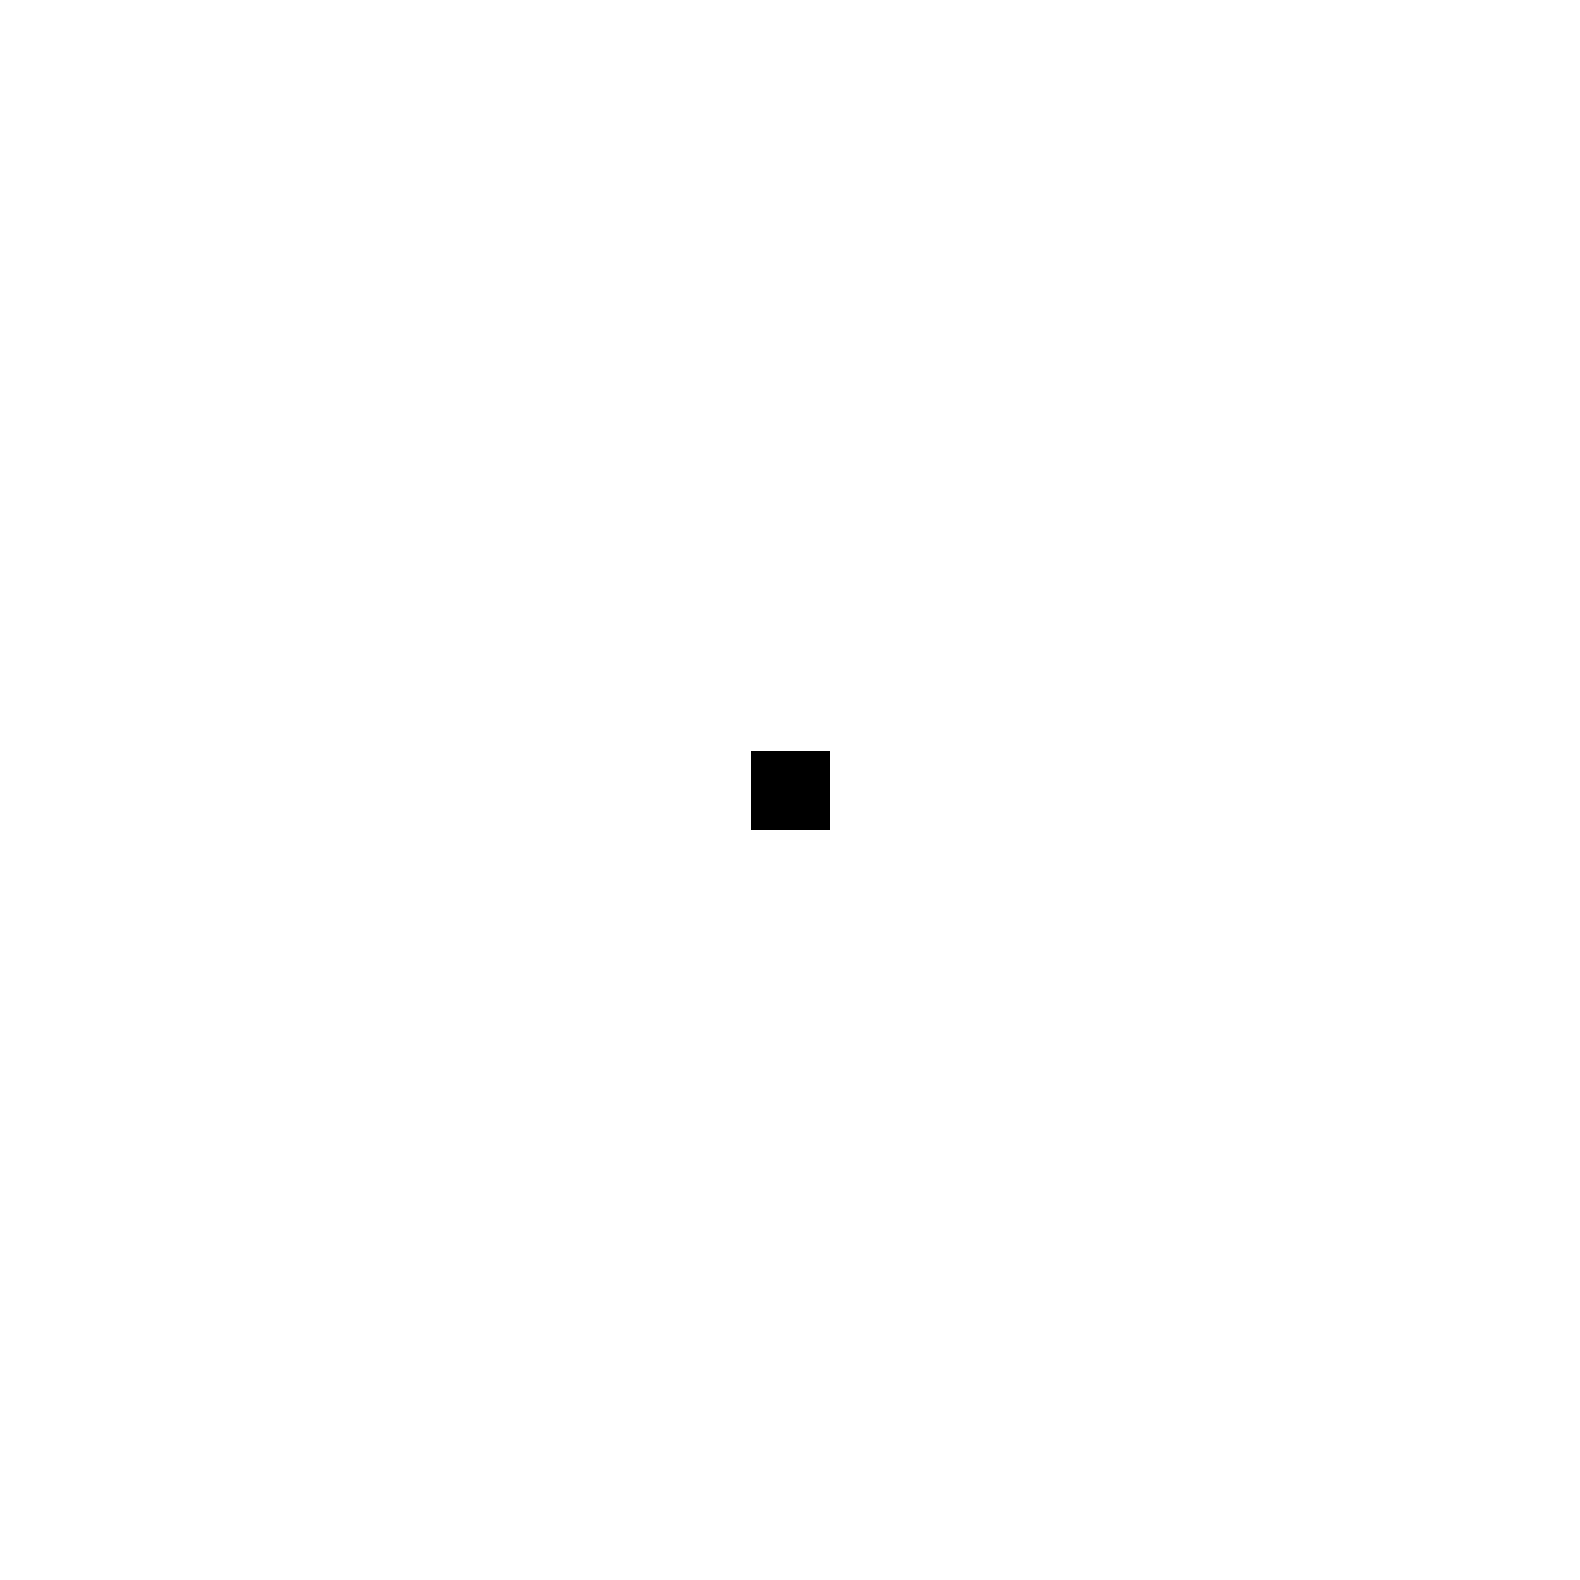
<svg xmlns="http://www.w3.org/2000/svg" xmlns:xlink="http://www.w3.org/1999/xlink" width="1580" height="1580" viewBox="0 0 1580 1580">
<rect width="100%" height="100%" fill="#ffffff"/>
<rect fill="#000000" x="751" y="751" width="79" height="79"/>
</svg>
